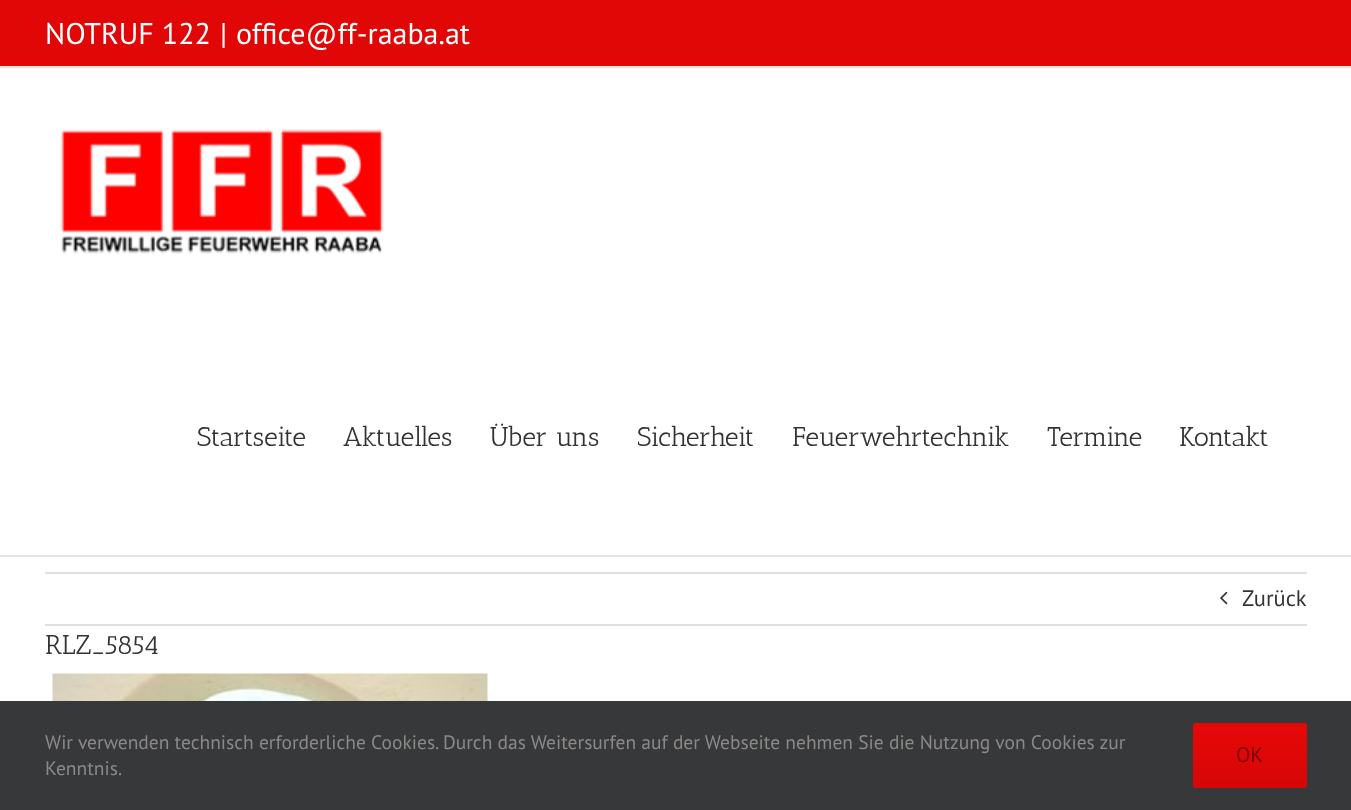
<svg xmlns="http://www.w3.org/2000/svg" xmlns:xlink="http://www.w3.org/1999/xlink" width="1351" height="810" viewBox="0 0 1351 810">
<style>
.cls-1{font:30px PT Sans;fill:#ffffff}
.cls-2{font:27px Antic Slab;fill:#333333}
.cls-3{font:22.5px PT Sans;fill:#333333}
.cls-4{font:19.5px PT Sans;fill:#8c8989}
.cls-5{font:21px PT Sans;fill:#780404}
</style>
<defs>
<linearGradient id="g1" gradientUnits="userSpaceOnUse" x1="1250" y1="723" x2="1250" y2="788"><stop offset="0" stop-color="#e80707"/><stop offset="1" stop-color="#d60707"/></linearGradient>
<clipPath id="clip1"><rect x="638" y="315" width="154" height="240"/></clipPath>
</defs>
<rect width="100%" height="100%" fill="#ffffff"/>
<rect fill="#e10707" x="0" y="0" width="1351" height="66"/>
<rect fill="#e5e5e5" x="0" y="66" width="1351" height="2"/>
<rect fill="#e5e5e5" x="0" y="555" width="1351" height="2"/>
<image xlink:href="image0.png" x="60" y="129" width="324" height="125"/>
<rect fill="#e0dede" x="45" y="572" width="1262" height="2"/>
<rect fill="#e0dede" x="45" y="624" width="1262" height="2"/>
<image xlink:href="image1.png" x="1220" y="591" width="8" height="14"/>
<image xlink:href="image2.png" x="52" y="673" width="436" height="28"/>
<rect fill="#363839" x="0" y="701" width="1351" height="109"/>
<rect fill="url(#g1)" x="1193" y="723" width="114" height="65" rx="3"/>
<text class="cls-1" x="45" y="44">NOTRUF 122</text>
<text class="cls-1" x="220" y="44">|</text>
<text class="cls-1" x="236" y="44">office@ff-raaba.at</text>
<text class="cls-2" x="197" y="446">Startseite</text>
<text class="cls-2" x="343" y="446">Aktuelles</text>
<text class="cls-2" x="490" y="446">Über uns</text>
<g clip-path="url(#clip1)">
<text class="cls-2" x="637" y="446">Sicherheit</text>
</g>
<text class="cls-2" x="792" y="446">Feuerwehrtechnik</text>
<text class="cls-2" x="1047" y="446">Termine</text>
<text class="cls-2" x="1179" y="446">Kontakt</text>
<text class="cls-3" x="1242" y="606">Zurück</text>
<text class="cls-2" x="45" y="654">RLZ_5854</text>
<text class="cls-4"><tspan x="45" y="749">Wir verwenden technisch erforderliche Cookies. Durch das Weitersurfen auf der Webseite nehmen Sie die Nutzung von Cookies zur</tspan><tspan x="45" y="775">Kenntnis.</tspan></text>
<text class="cls-5" x="1236" y="762">OK</text>
</svg>
